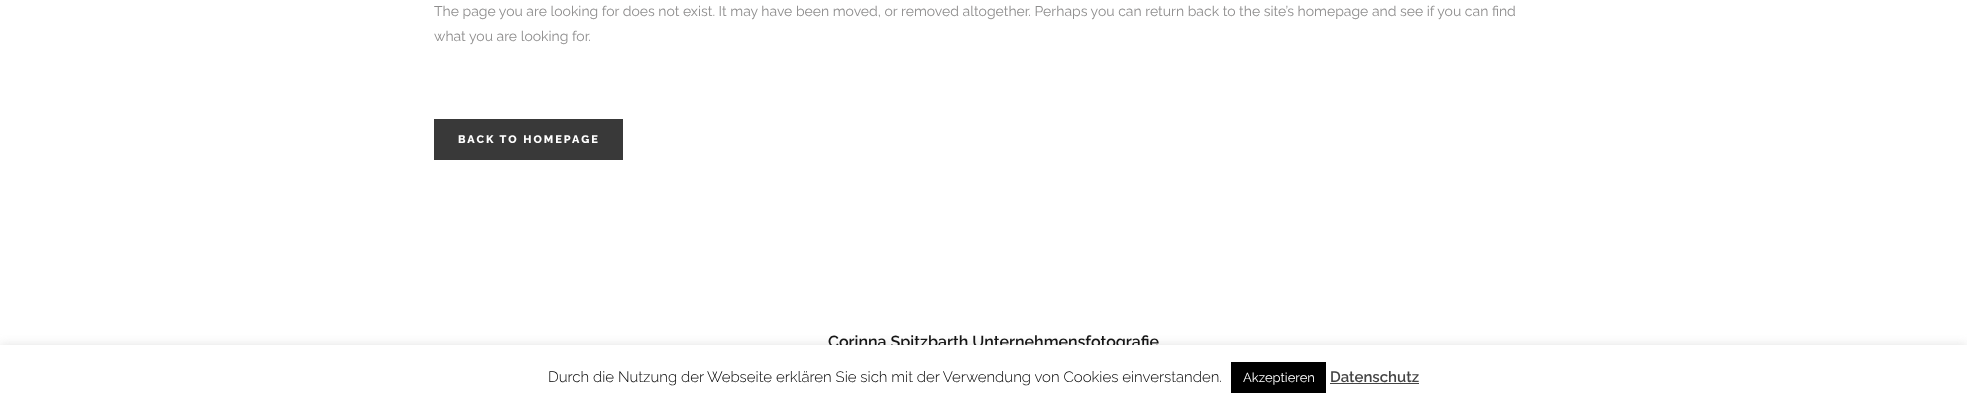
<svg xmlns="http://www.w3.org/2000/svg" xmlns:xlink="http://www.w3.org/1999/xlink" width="1967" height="405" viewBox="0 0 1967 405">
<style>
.cls-1{font:100 14px Raleway;fill:#8e8d8d}
.cls-2{font:100 11px 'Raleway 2';letter-spacing:2px;fill:#ffffff}
.cls-3{font:100 16px 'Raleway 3';fill:#161616}
.cls-4{font:100 15px 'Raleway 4';fill:#000000}
.cls-5{font:100 13px Raleway;fill:#ffffff}
.cls-6{font:100 15px 'Raleway 3';fill:#444444}
</style>
<rect width="100%" height="100%" fill="#ffffff"/>
<rect fill="#393939" x="434" y="119" width="189" height="41"/>
<rect fill="#acabab" fill-opacity="0.3" filter="blur(5px)" x="0" y="344" width="1967" height="60"/>
<text class="cls-1"><tspan x="434" y="16">The page you are looking for does not exist. It may have been moved, or removed altogether. Perhaps you can return back to the site’s homepage and see if you can find</tspan><tspan x="434" y="41">what you are looking for.</tspan></text>
<text class="cls-2" x="458" y="143">BACK TO HOMEPAGE</text>
<text class="cls-3" x="828" y="347">Corinna Spitzbarth Unternehmensfotografie</text>
<rect fill="#ffffff" x="0" y="345" width="1967" height="60"/>
<text class="cls-4" x="548" y="382">Durch die Nutzung der Webseite erklären Sie sich mit der Verwendung von Cookies einverstanden.</text>
<rect fill="#000000" x="1231" y="362" width="95" height="31"/>
<text class="cls-5" x="1243" y="382">Akzeptieren</text>
<text class="cls-6" x="1330" y="382">Datenschutz</text>
<rect fill="#444444" x="1330" y="383" width="89" height="1"/>
</svg>
